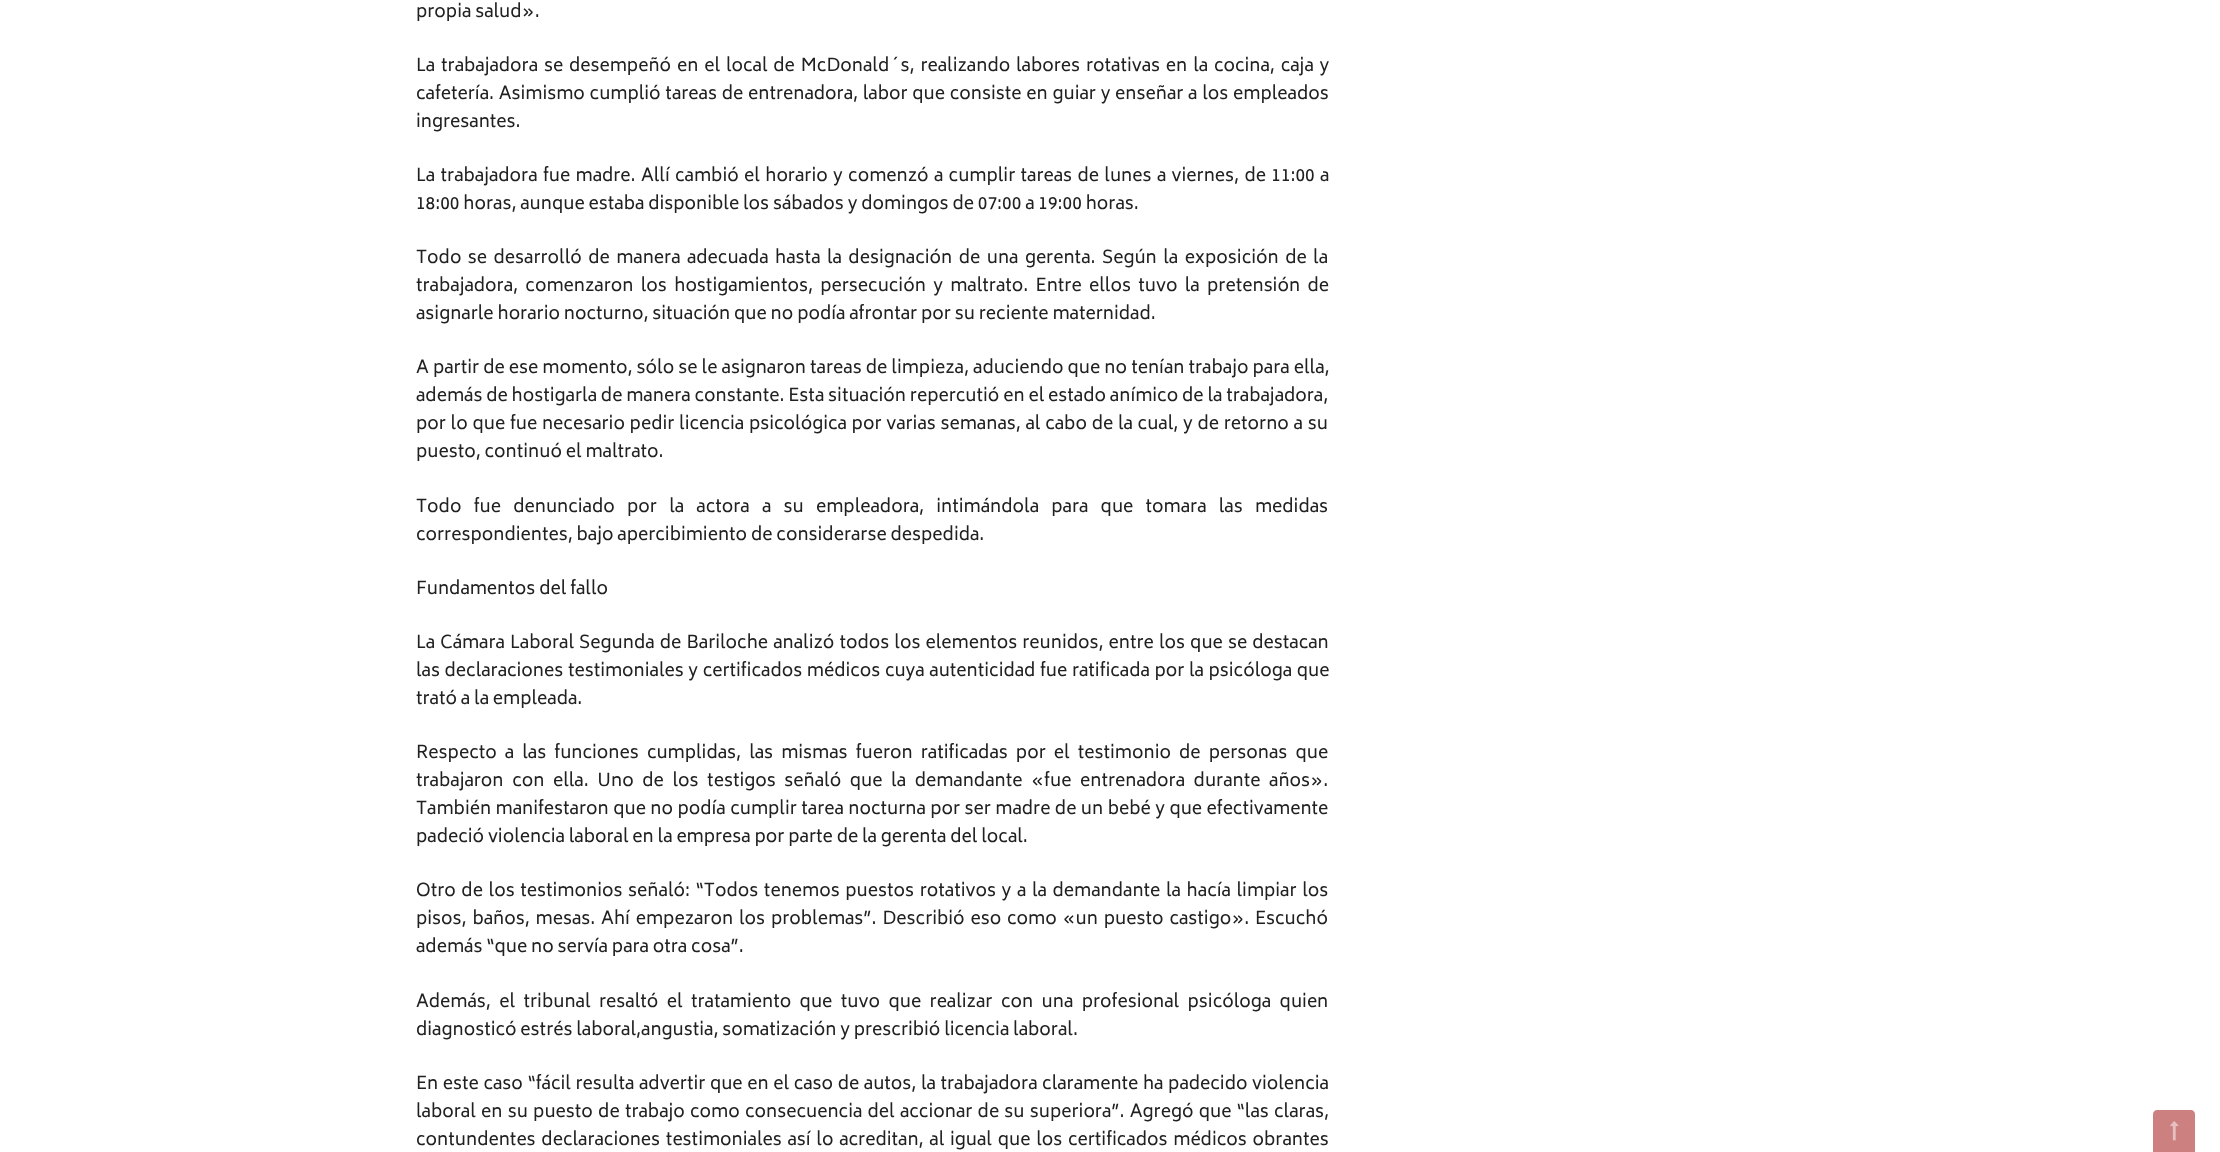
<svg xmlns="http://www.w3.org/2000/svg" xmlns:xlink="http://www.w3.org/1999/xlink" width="2220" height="1152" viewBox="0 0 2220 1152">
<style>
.cls-1{font:17.5px Biryani;fill:#212121}
</style>
<rect width="100%" height="100%" fill="#ffffff"/>
<path fill="#cc8080" d="M2157 1110H2191C2193 1110 2195 1112 2195 1114V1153H2153V1114C2153 1112 2155 1110 2157 1110Z"/>
<image xlink:href="image0.png" x="2170" y="1121" width="9" height="20"/>
<text class="cls-1" x="416" y="17">propia salud».</text>
<text class="cls-1"><tspan x="416" y="71" word-spacing="2">La trabajadora se desempeñó en el local de McDonald´s, realizando labores rotativas en la cocina, caja y</tspan><tspan x="416" y="99" word-spacing="0.9">cafetería. Asimismo cumplió tareas de entrenadora, labor que consiste en guiar y enseñar a los empleados</tspan><tspan x="416" y="127">ingresantes.</tspan></text>
<text class="cls-1"><tspan x="416" y="181" word-spacing="1.5">La trabajadora fue madre. Allí cambió el horario y comenzó a cumplir tareas de lunes a viernes, de 11:00 a</tspan><tspan x="416" y="209">18:00 horas, aunque estaba disponible los sábados y domingos de 07:00 a 19:00 horas.</tspan></text>
<text class="cls-1"><tspan x="416" y="263" word-spacing="2.6">Todo se desarrolló de manera adecuada hasta la designación de una gerenta. Según la exposición de la</tspan><tspan x="416" y="291" word-spacing="3.5">trabajadora, comenzaron los hostigamientos, persecución y maltrato. Entre ellos tuvo la pretensión de</tspan><tspan x="416" y="319">asignarle horario nocturno, situación que no podía afrontar por su reciente maternidad.</tspan></text>
<text class="cls-1"><tspan x="416" y="373" word-spacing="0.25">A partir de ese momento, sólo se le asignaron tareas de limpieza, aduciendo que no tenían trabajo para ella,</tspan><tspan x="416" y="401">además de hostigarla de manera constante. Esta situación repercutió en el estado anímico de la trabajadora,</tspan><tspan x="416" y="429" word-spacing="0.9">por lo que fue necesario pedir licencia psicológica por varias semanas, al cabo de la cual, y de retorno a su</tspan><tspan x="416" y="457">puesto, continuó el maltrato.</tspan></text>
<text class="cls-1"><tspan x="416" y="512" word-spacing="8.4">Todo fue denunciado por la actora a su empleadora, intimándola para que tomara las medidas</tspan><tspan x="416" y="540">correspondientes, bajo apercibimiento de considerarse despedida.</tspan></text>
<text class="cls-1" x="416" y="594">Fundamentos del fallo</text>
<text class="cls-1"><tspan x="416" y="648" word-spacing="1.25">La Cámara Laboral Segunda de Bariloche analizó todos los elementos reunidos, entre los que se destacan</tspan><tspan x="416" y="676" word-spacing="0.75">las declaraciones testimoniales y certificados médicos cuya autenticidad fue ratificada por la psicóloga que</tspan><tspan x="416" y="704">trató a la empleada.</tspan></text>
<text class="cls-1"><tspan x="416" y="758" word-spacing="4.25">Respecto a las funciones cumplidas, las mismas fueron ratificadas por el testimonio de personas que</tspan><tspan x="416" y="786" word-spacing="4.75">trabajaron con ella. Uno de los testigos señaló que la demandante «fue entrenadora durante años».</tspan><tspan x="416" y="814" word-spacing="0.6">También manifestaron que no podía cumplir tarea nocturna por ser madre de un bebé y que efectivamente</tspan><tspan x="416" y="842">padeció violencia laboral en la empresa por parte de la gerenta del local.</tspan></text>
<text class="cls-1"><tspan x="416" y="896" word-spacing="1.8">Otro de los testimonios señaló: “Todos tenemos puestos rotativos y a la demandante la hacía limpiar los</tspan><tspan x="416" y="924" word-spacing="2">pisos, baños, mesas. Ahí empezaron los problemas”. Describió eso como «un puesto castigo». Escuchó</tspan><tspan x="416" y="952">además “que no servía para otra cosa”.</tspan></text>
<text class="cls-1"><tspan x="416" y="1007" word-spacing="4.6">Además, el tribunal resaltó el tratamiento que tuvo que realizar con una profesional psicóloga quien</tspan><tspan x="416" y="1035">diagnosticó estrés laboral,angustia, somatización y prescribió licencia laboral.</tspan></text>
<text class="cls-1"><tspan x="416" y="1089" word-spacing="0.75">En este caso “fácil resulta advertir que en el caso de autos, la trabajadora claramente ha padecido violencia</tspan><tspan x="416" y="1117" word-spacing="1.4">laboral en su puesto de trabajo como consecuencia del accionar de su superiora”. Agregó que “las claras,</tspan><tspan x="416" y="1145" word-spacing="1.9">contundentes declaraciones testimoniales así lo acreditan, al igual que los certificados médicos obrantes</tspan></text>
</svg>
